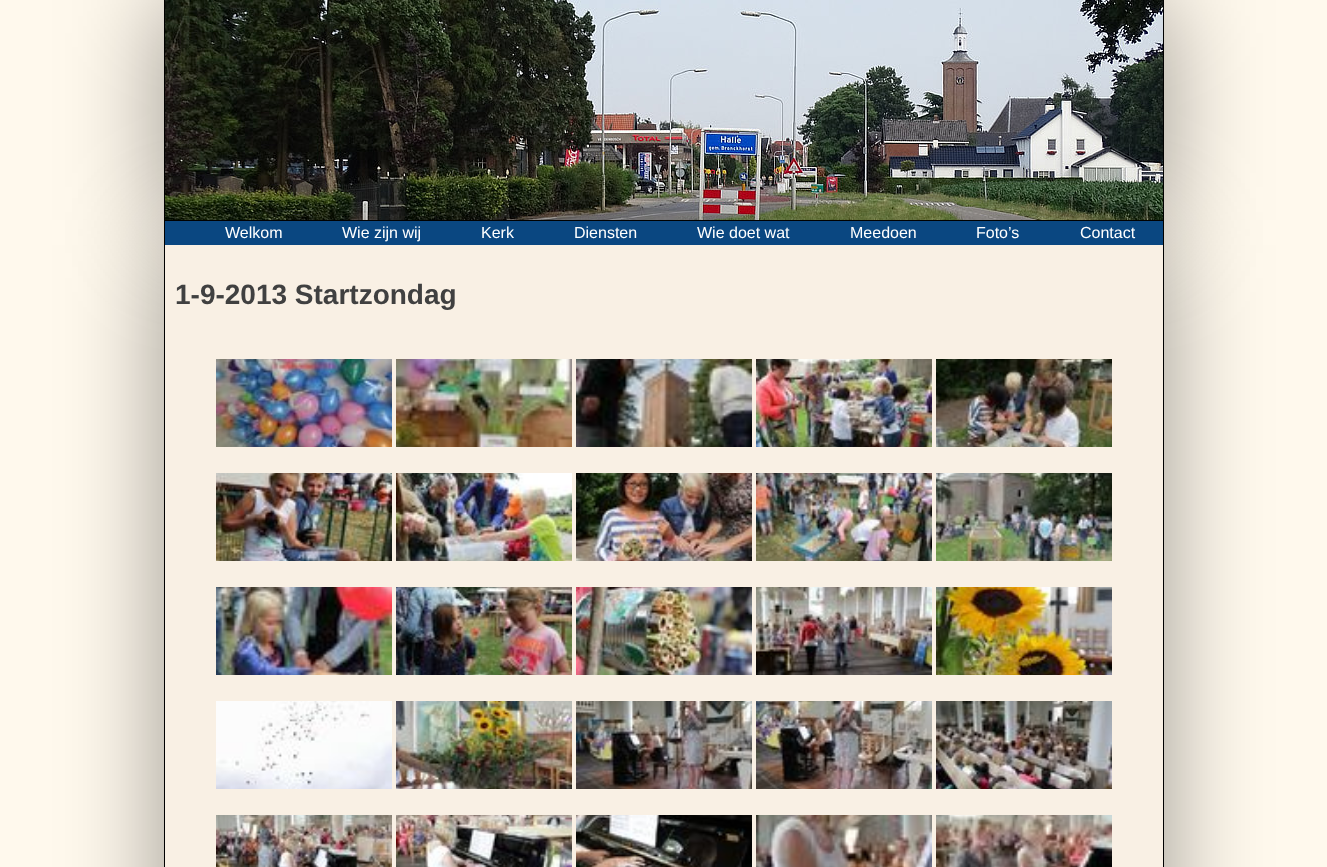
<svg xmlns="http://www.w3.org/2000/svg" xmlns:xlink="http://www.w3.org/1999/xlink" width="1327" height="867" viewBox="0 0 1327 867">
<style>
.cls-1{font:16px Liberation Sans;fill:#ffffff}
.cls-2{font:bold 28px Liberation Sans;fill:#404040}
</style>
<rect width="100%" height="100%" fill="#fff9ed"/>
<rect fill="#000000" fill-opacity="0.4" filter="blur(50px)" x="164" y="0" width="1000" height="220"/>
<image xlink:href="image0.png" x="165" y="0" width="998" height="220"/>
<rect fill="#000000" x="1163" y="0" width="1" height="220"/>
<rect fill="#000000" x="164" y="0" width="1" height="220"/>
<rect fill="#000000" fill-opacity="0.4" filter="blur(50px)" x="164" y="245" width="1000" height="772"/>
<rect fill="#0a4781" x="165" y="221" width="998" height="24"/>
<rect fill="#000000" x="164" y="220" width="1000" height="1"/>
<rect fill="#000000" x="1163" y="220" width="1" height="25"/>
<rect fill="#000000" x="164" y="220" width="1" height="25"/>
<rect fill="#f9f0e4" x="165" y="245" width="998" height="622"/>
<rect fill="#000000" x="1163" y="245" width="1" height="622"/>
<rect fill="#000000" x="164" y="245" width="1" height="622"/>
<image xlink:href="image1.png" x="216" y="359" width="176" height="88"/>
<image xlink:href="image2.png" x="396" y="359" width="176" height="88"/>
<image xlink:href="image3.png" x="576" y="359" width="176" height="88"/>
<image xlink:href="image4.png" x="756" y="359" width="176" height="88"/>
<image xlink:href="image5.png" x="936" y="359" width="176" height="88"/>
<image xlink:href="image6.png" x="216" y="473" width="176" height="88"/>
<image xlink:href="image7.png" x="396" y="473" width="176" height="88"/>
<image xlink:href="image8.png" x="576" y="473" width="176" height="88"/>
<image xlink:href="image9.png" x="756" y="473" width="176" height="88"/>
<image xlink:href="image10.png" x="936" y="473" width="176" height="88"/>
<image xlink:href="image11.png" x="216" y="587" width="176" height="88"/>
<image xlink:href="image12.png" x="396" y="587" width="176" height="88"/>
<image xlink:href="image13.png" x="576" y="587" width="176" height="88"/>
<image xlink:href="image14.png" x="756" y="587" width="176" height="88"/>
<image xlink:href="image15.png" x="936" y="587" width="176" height="88"/>
<image xlink:href="image16.png" x="216" y="701" width="176" height="88"/>
<image xlink:href="image17.png" x="396" y="701" width="176" height="88"/>
<image xlink:href="image18.png" x="576" y="701" width="176" height="88"/>
<image xlink:href="image19.png" x="756" y="701" width="176" height="88"/>
<image xlink:href="image20.png" x="936" y="701" width="176" height="88"/>
<image xlink:href="image21.png" x="216" y="815" width="176" height="52"/>
<image xlink:href="image22.png" x="396" y="815" width="176" height="52"/>
<image xlink:href="image23.png" x="576" y="815" width="176" height="52"/>
<image xlink:href="image24.png" x="756" y="815" width="176" height="52"/>
<image xlink:href="image25.png" x="936" y="815" width="176" height="52"/>
<text class="cls-1" x="225" y="238">Welkom</text>
<text class="cls-1" x="342" y="238">Wie zijn wij</text>
<text class="cls-1" x="481" y="238">Kerk</text>
<text class="cls-1" x="574" y="238">Diensten</text>
<text class="cls-1" x="697" y="238">Wie doet wat</text>
<text class="cls-1" x="850" y="238">Meedoen</text>
<text class="cls-1" x="976" y="238">Foto’s</text>
<text class="cls-1" x="1080" y="238">Contact</text>
<text class="cls-2" x="175" y="304">1-9-2013 Startzondag</text>
</svg>
